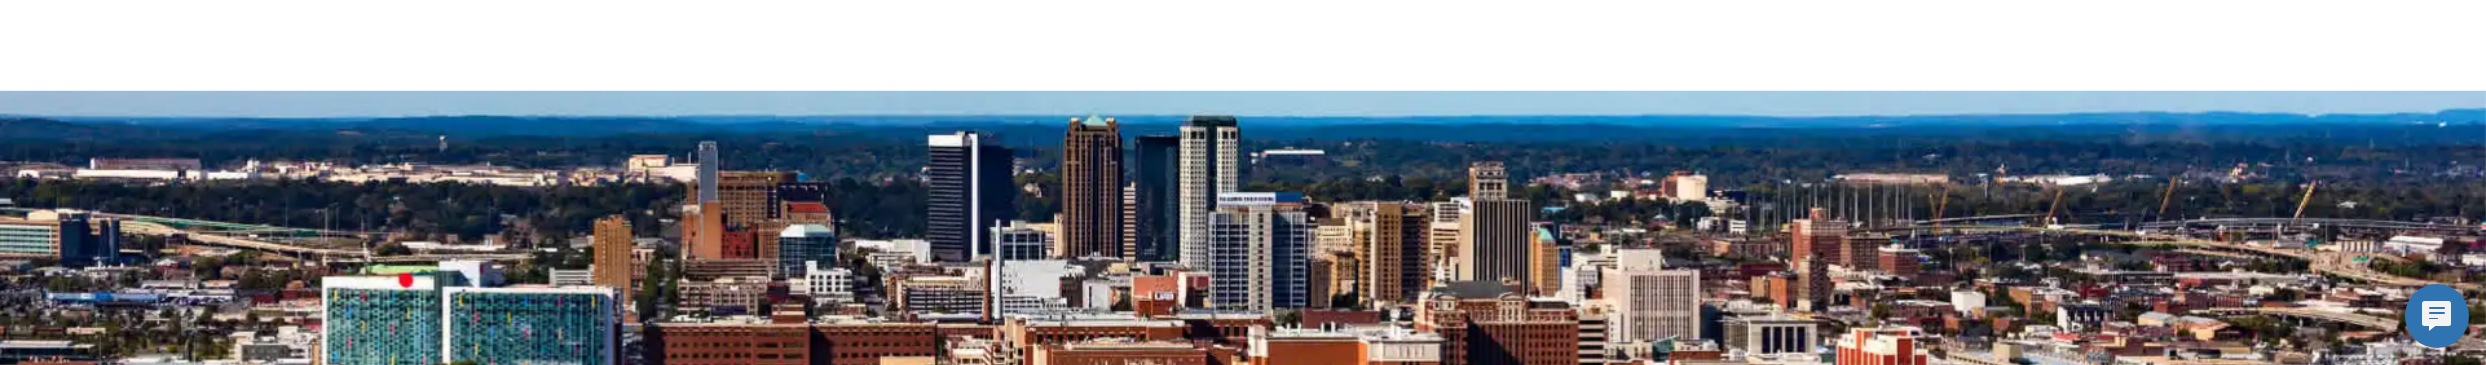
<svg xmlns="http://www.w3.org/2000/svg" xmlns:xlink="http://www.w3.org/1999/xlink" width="2486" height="365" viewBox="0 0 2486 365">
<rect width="100%" height="100%" fill="#ffffff"/>
<rect fill="#edf1f7" x="0" y="90" width="2486" height="1"/>
<image xlink:href="image0.png" x="0" y="91" width="2486" height="274"/>
<circle fill="#3073b1" cx="2437" cy="316" r="32"/>
<rect fill="#f3f3f3" x="2422" y="301" width="29" height="25" rx="2.5"/>
<path fill="#fbfbfb" d="M2429 331V325H2436.5Z"/>
<rect fill="#3073b1" x="2429" y="307" width="16" height="2" rx="1"/>
<rect fill="#3073b1" x="2429" y="312" width="16" height="2" rx="1"/>
<rect fill="#3073b1" x="2429" y="318" width="9" height="1" rx="0.5"/>
</svg>
